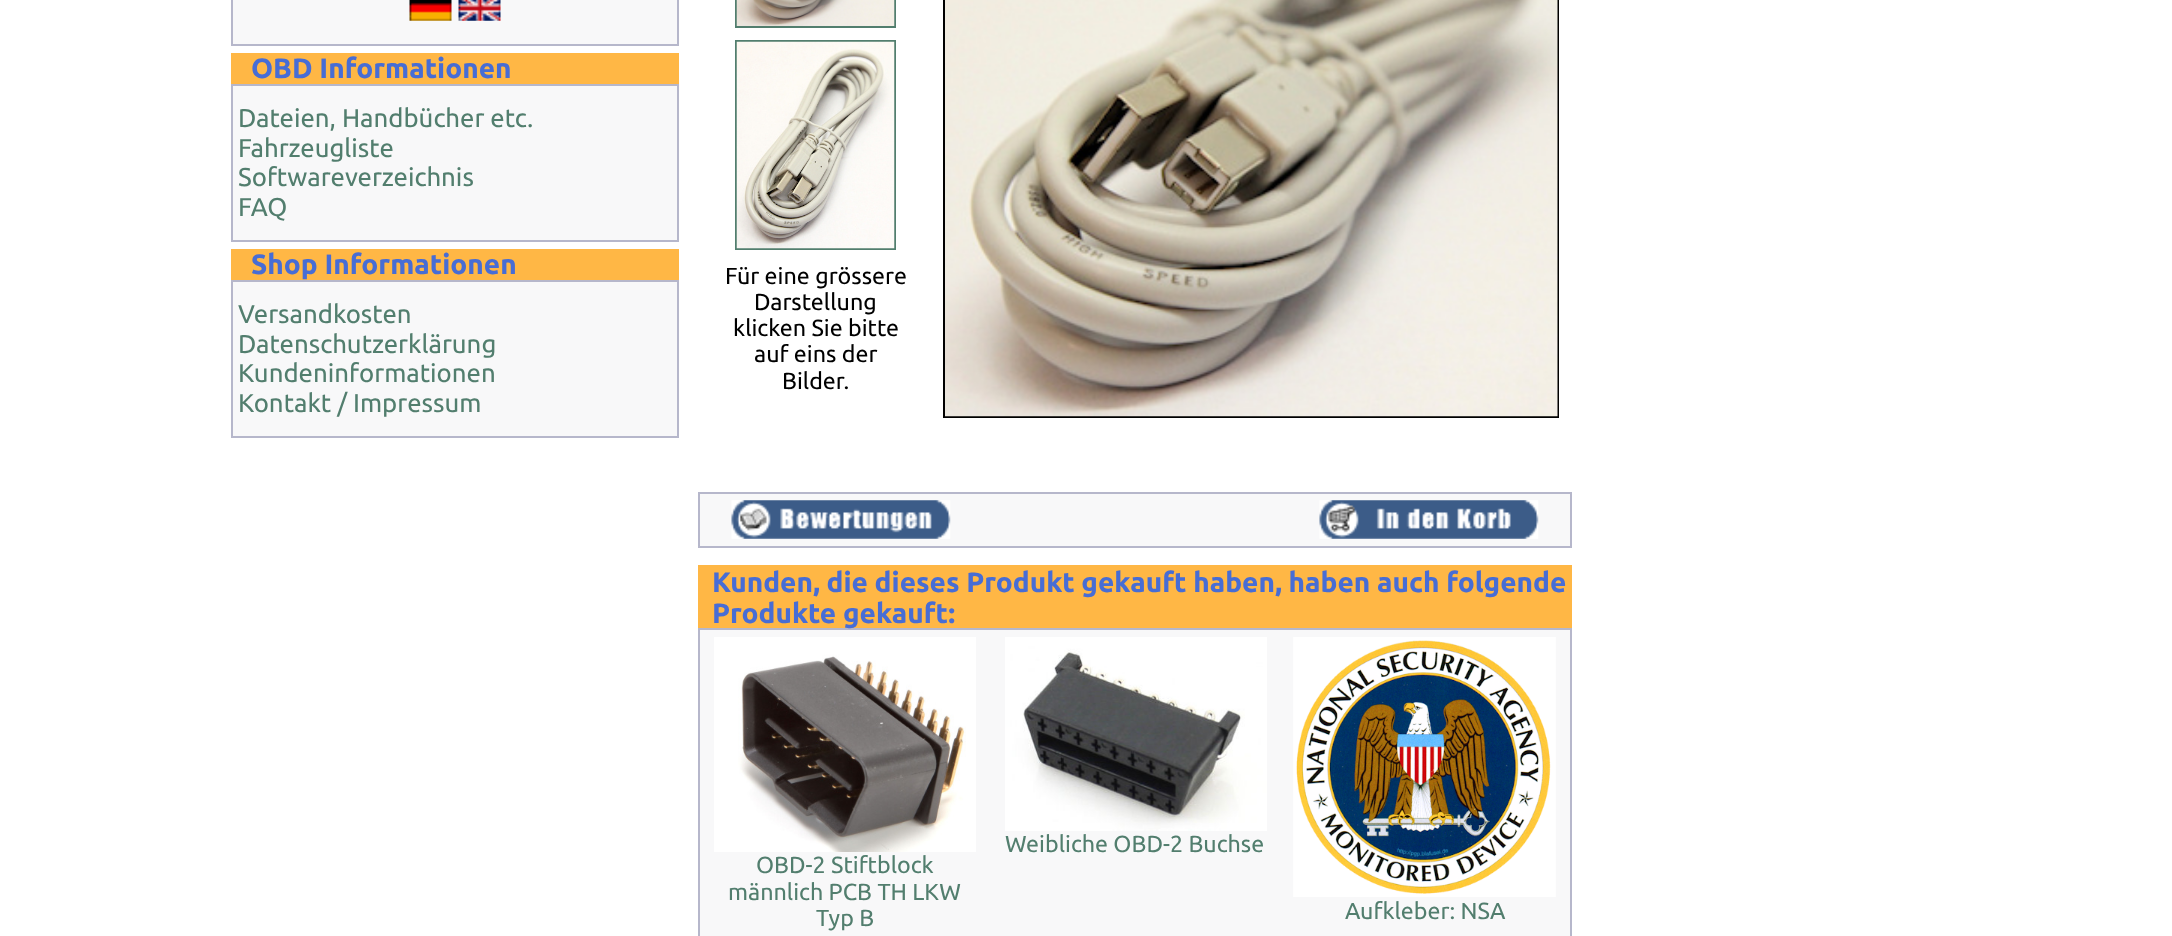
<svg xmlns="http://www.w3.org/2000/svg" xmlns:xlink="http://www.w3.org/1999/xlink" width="2172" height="936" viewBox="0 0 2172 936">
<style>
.cls-1{font:bold 28px Ubuntu;fill:#476dd5}
.cls-2{font:25.75px Ubuntu;fill:#527e6e}
.cls-3{font:23.25px Ubuntu;fill:#000000}
.cls-4{font:23.25px Ubuntu;fill:#527e6e}
</style>
<rect width="100%" height="100%" fill="#ffffff"/>
<rect fill="#b6b7cb" x="231" y="0" width="448" height="46"/>
<rect fill="#f8f8f9" x="233" y="0" width="444" height="44"/>
<image xlink:href="image0.png" x="409" y="0" width="43" height="21"/>
<image xlink:href="image1.png" x="458" y="0" width="43" height="21"/>
<rect fill="#ffb745" x="231" y="53" width="448" height="31"/>
<rect fill="#b6b7cb" x="231" y="84" width="448" height="158"/>
<rect fill="#f8f8f9" x="233" y="86" width="444" height="154"/>
<rect fill="#ffb745" x="231" y="249" width="448" height="31"/>
<rect fill="#b6b7cb" x="231" y="280" width="448" height="158"/>
<rect fill="#f8f8f9" x="233" y="282" width="444" height="154"/>
<rect fill="none" stroke="#527e6e" stroke-width="2" x="736" y="-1" width="159" height="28"/>
<image xlink:href="image2.png" x="736" y="0" width="159" height="26"/>
<rect fill="none" stroke="#527e6e" stroke-width="2" x="736" y="41" width="159" height="208"/>
<image xlink:href="image3.png" x="736" y="41" width="159" height="208"/>
<rect fill="none" stroke="#000000" stroke-width="2" x="944" y="-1" width="614" height="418"/>
<image xlink:href="image4.png" x="945" y="0" width="613" height="417"/>
<rect fill="#b6b7cb" x="698" y="492" width="874" height="56"/>
<rect fill="#f8f8f9" x="700" y="494" width="870" height="52"/>
<image xlink:href="image5.png" x="731" y="500" width="220" height="39"/>
<image xlink:href="image6.png" x="1319" y="500" width="220" height="39"/>
<rect fill="#ffb745" x="698" y="565" width="874" height="63"/>
<rect fill="#b6b7cb" x="698" y="628" width="874" height="308"/>
<rect fill="#f8f8f9" x="700" y="630" width="870" height="306"/>
<image xlink:href="image7.png" x="1005" y="637" width="262" height="194"/>
<image xlink:href="image8.png" x="714" y="637" width="262" height="215"/>
<image xlink:href="image9.png" x="1293" y="637" width="263" height="260"/>
<text class="cls-1" x="251" y="78">OBD Informationen</text>
<text class="cls-2"><tspan x="238" y="127">Dateien, Handbücher etc.</tspan><tspan x="238" y="157">Fahrzeugliste</tspan><tspan x="238" y="186">Softwareverzeichnis</tspan><tspan x="238" y="216">FAQ</tspan></text>
<text class="cls-1" x="251" y="274">Shop Informationen</text>
<text class="cls-2"><tspan x="238" y="323">Versandkosten</tspan><tspan x="238" y="353">Datenschutzerklärung</tspan><tspan x="238" y="382">Kundeninformationen</tspan><tspan x="238" y="412">Kontakt / Impressum</tspan></text>
<text class="cls-3" x="725" y="284">Für eine grössere</text>
<text class="cls-3" x="754" y="310">Darstellung</text>
<text class="cls-3" x="733" y="336">klicken Sie bitte</text>
<text class="cls-3" x="754" y="362">auf eins der</text>
<text class="cls-3" x="782" y="389">Bilder.</text>
<text class="cls-1"><tspan x="712" y="592">Kunden, die dieses Produkt gekauft haben, haben auch folgende</tspan><tspan x="712" y="623">Produkte gekauft:</tspan></text>
<text class="cls-4" x="1005" y="852">Weibliche OBD-2 Buchse</text>
<text class="cls-4" x="756" y="873">OBD-2 Stiftblock</text>
<text class="cls-4" x="728" y="900">männlich PCB TH LKW</text>
<text class="cls-4" x="816" y="926">Typ B</text>
<text class="cls-4" x="1345" y="919">Aufkleber: NSA</text>
</svg>
